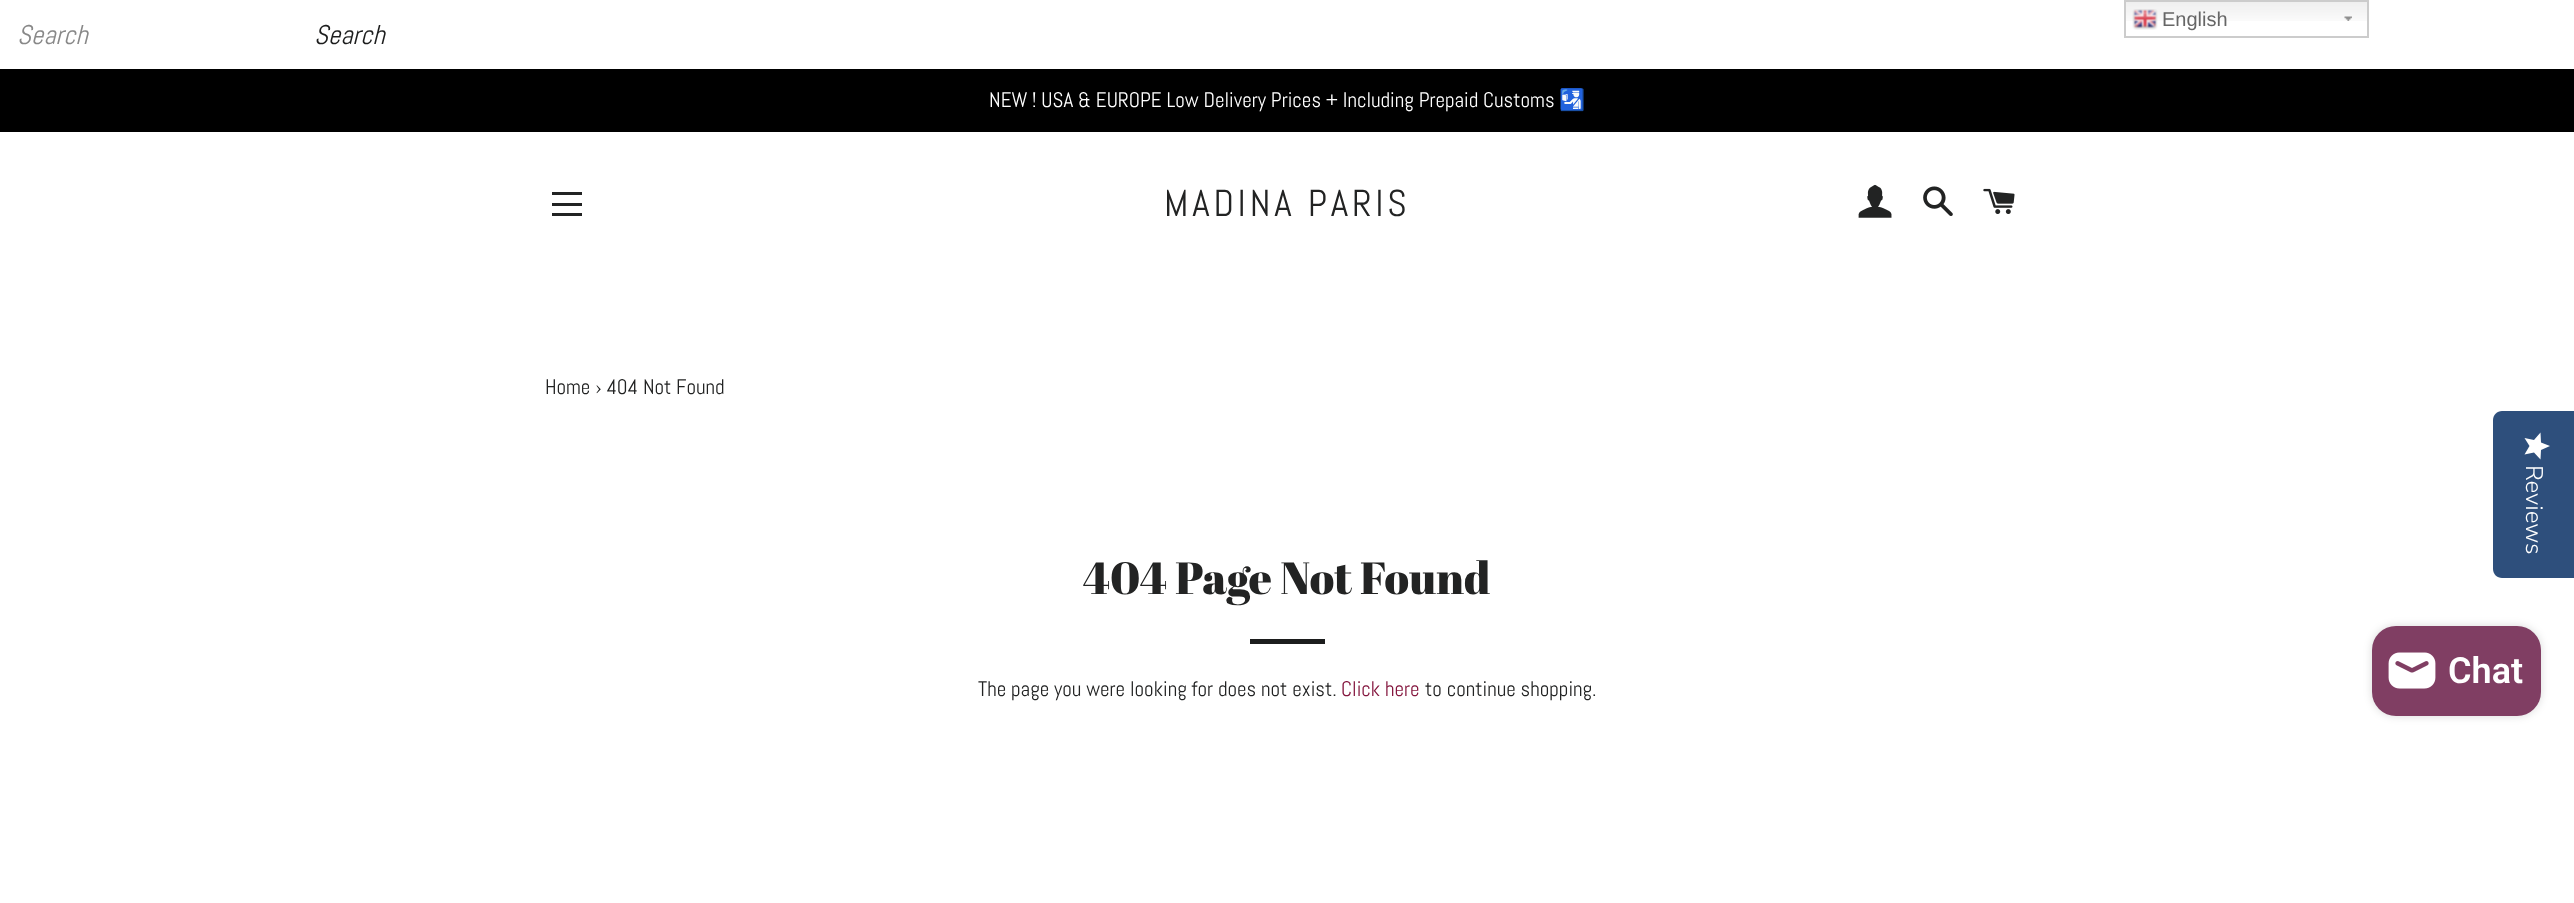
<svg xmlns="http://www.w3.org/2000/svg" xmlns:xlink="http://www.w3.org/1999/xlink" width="2574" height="903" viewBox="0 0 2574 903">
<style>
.cls-1{font:20px Liberation Sans;fill:#666666}
.cls-2{font:italic 27px Abel;fill:#888888}
.cls-3{font:italic 27px Abel;fill:#1c1d1d}
.cls-4{font:21px Abel;fill:#ffffff}
.cls-5{font:21px Noto Color Emoji;fill:#ffffff}
.cls-6{font:37.5px Abel;letter-spacing:3.75px;fill:#222323}
.cls-7{font:21px Abel;fill:#222323}
.cls-8{font:45px Abril Fatface;fill:#222323}
.cls-9{font:21px Abel;fill:#84163e}
.cls-10{font:300 24px Nunito Sans;fill:#ffffff}
.cls-11{font:600 36px Roboto;fill:#ffffff}
</style>
<defs>
<linearGradient id="g1" gradientUnits="userSpaceOnUse" x1="2550" y1="433" x2="2550" y2="460"><stop offset="1" stop-color="#ffffff"/><stop offset="1" stop-color="#eaeaea"/></linearGradient>
</defs>
<rect width="100%" height="100%" fill="#ffffff"/>
<image xlink:href="image0.png" x="2126" y="2" width="241" height="19"/>
<image xlink:href="image1.png" x="2344" y="16" width="8" height="5"/>
<rect fill="none" stroke="#cccccc" stroke-width="2" x="2125" y="1" width="243" height="36"/>
<image xlink:href="image2.png" x="2132" y="9" width="26" height="21"/>
<rect fill="#000000" x="0" y="69" width="2574" height="63"/>
<rect fill="#222323" x="552" y="192" width="30" height="3"/>
<rect fill="#222323" x="552" y="203" width="30" height="3"/>
<rect fill="#222323" x="552" y="213" width="30" height="3"/>
<image xlink:href="image3.png" x="1858" y="184" width="34" height="34"/>
<image xlink:href="image4.png" x="1923" y="186" width="30" height="30"/>
<image xlink:href="image5.png" x="1983" y="188" width="32" height="26"/>
<rect fill="#1c1d1d" x="1250" y="639" width="75" height="5"/>
<path fill="#2e4f7c" d="M2574 411V578H2502C2497 578 2493 574 2493 569V420C2493 415 2497 411 2502 411Z"/>
<path fill="url(#g1)" d="M2529.5 446L2524.5 454.5L2534 452.5L2540.5 459.5L2541 450L2550 446L2541 442.5L2540.5 432.5L2534 440L2524.5 438Z"/>
<rect fill="#000000" fill-opacity="0.15" filter="blur(4px)" x="2372" y="626" width="169" height="90" rx="24"/>
<rect fill="#803e63" x="2372" y="626" width="169" height="90" rx="24"/>
<image xlink:href="image6.png" x="2388" y="652" width="48" height="37"/>
<text class="cls-1" x="2162" y="26">English</text>
<text class="cls-2" x="17" y="44">Search</text>
<text class="cls-3" x="314" y="44">Search</text>
<text class="cls-4" x="989" y="107">NEW ! USA &amp; EUROPE Low Delivery Prices + Including Prepaid Customs</text>
<text class="cls-5" x="1559" y="107">🛂</text>
<text class="cls-6" x="1164" y="216">MADINA PARIS</text>
<text class="cls-7" x="545" y="394">Home › 404 Not Found</text>
<text class="cls-8" x="1083" y="594">404 Page Not Found</text>
<text class="cls-7" x="978" y="696">The page you were looking for does not exist.</text>
<text class="cls-9" x="1341" y="696">Click here</text>
<text class="cls-7" x="1425" y="696">to continue shopping.</text>
<text class="cls-10" x="2526" y="465" transform="rotate(90 2526 465)">Reviews</text>
<text class="cls-11" x="2448" y="683">Chat</text>
</svg>
